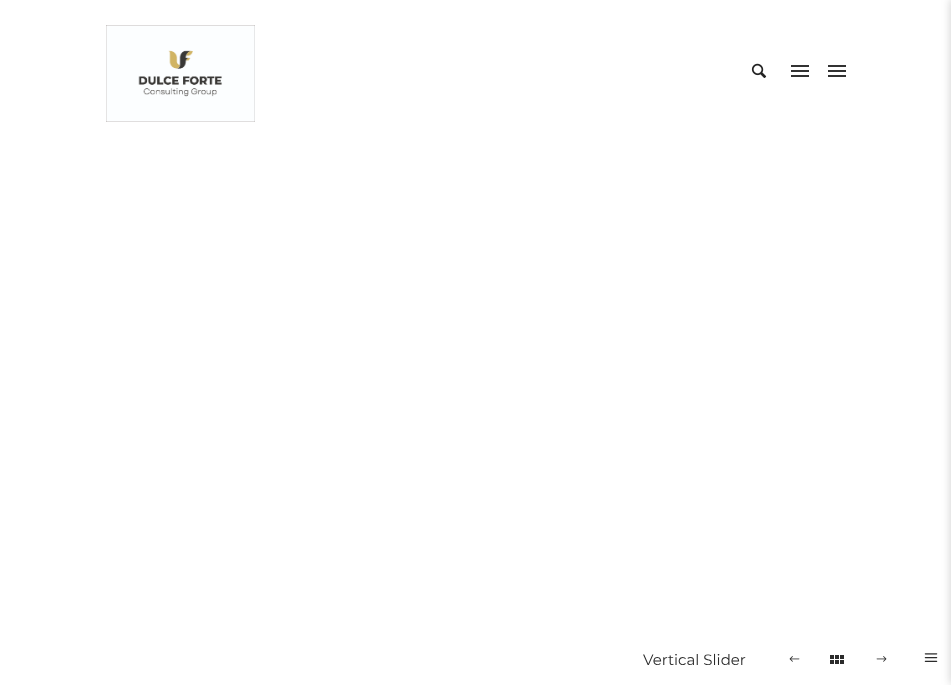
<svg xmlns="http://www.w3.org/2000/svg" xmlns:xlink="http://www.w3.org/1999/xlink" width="951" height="685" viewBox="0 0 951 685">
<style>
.cls-1{font:15px Montserrat;fill:#2b2b2b}
</style>
<rect width="100%" height="100%" fill="#ffffff"/>
<image xlink:href="image0.png" x="106" y="25" width="149" height="97"/>
<image xlink:href="image1.png" x="751" y="63" width="16" height="15"/>
<rect fill="#323232" x="791" y="65" width="18" height="2"/>
<rect fill="#323232" x="791" y="70" width="18" height="2"/>
<rect fill="#323232" x="791" y="75" width="18" height="2"/>
<rect fill="#323232" x="828" y="65" width="18" height="2"/>
<rect fill="#323232" x="828" y="70" width="18" height="2"/>
<rect fill="#323232" x="828" y="75" width="18" height="2"/>
<image xlink:href="image2.png" x="789" y="656" width="11" height="6"/>
<rect fill="#2b2b2b" x="830" y="655" width="4" height="4"/>
<rect fill="#2b2b2b" x="835" y="655" width="4" height="4"/>
<rect fill="#2b2b2b" x="840" y="655" width="4" height="4"/>
<rect fill="#2b2b2b" x="830" y="660" width="4" height="4"/>
<rect fill="#2b2b2b" x="835" y="660" width="4" height="4"/>
<rect fill="#2b2b2b" x="840" y="660" width="4" height="4"/>
<image xlink:href="image3.png" x="876" y="656" width="11" height="6"/>
<rect fill="#000000" fill-opacity="0.2" filter="blur(5px)" x="951" y="-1" width="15" height="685"/>
<image xlink:href="image4.png" x="924" y="653" width="14" height="9"/>
<text class="cls-1" x="643" y="665">Vertical Slider</text>
</svg>
